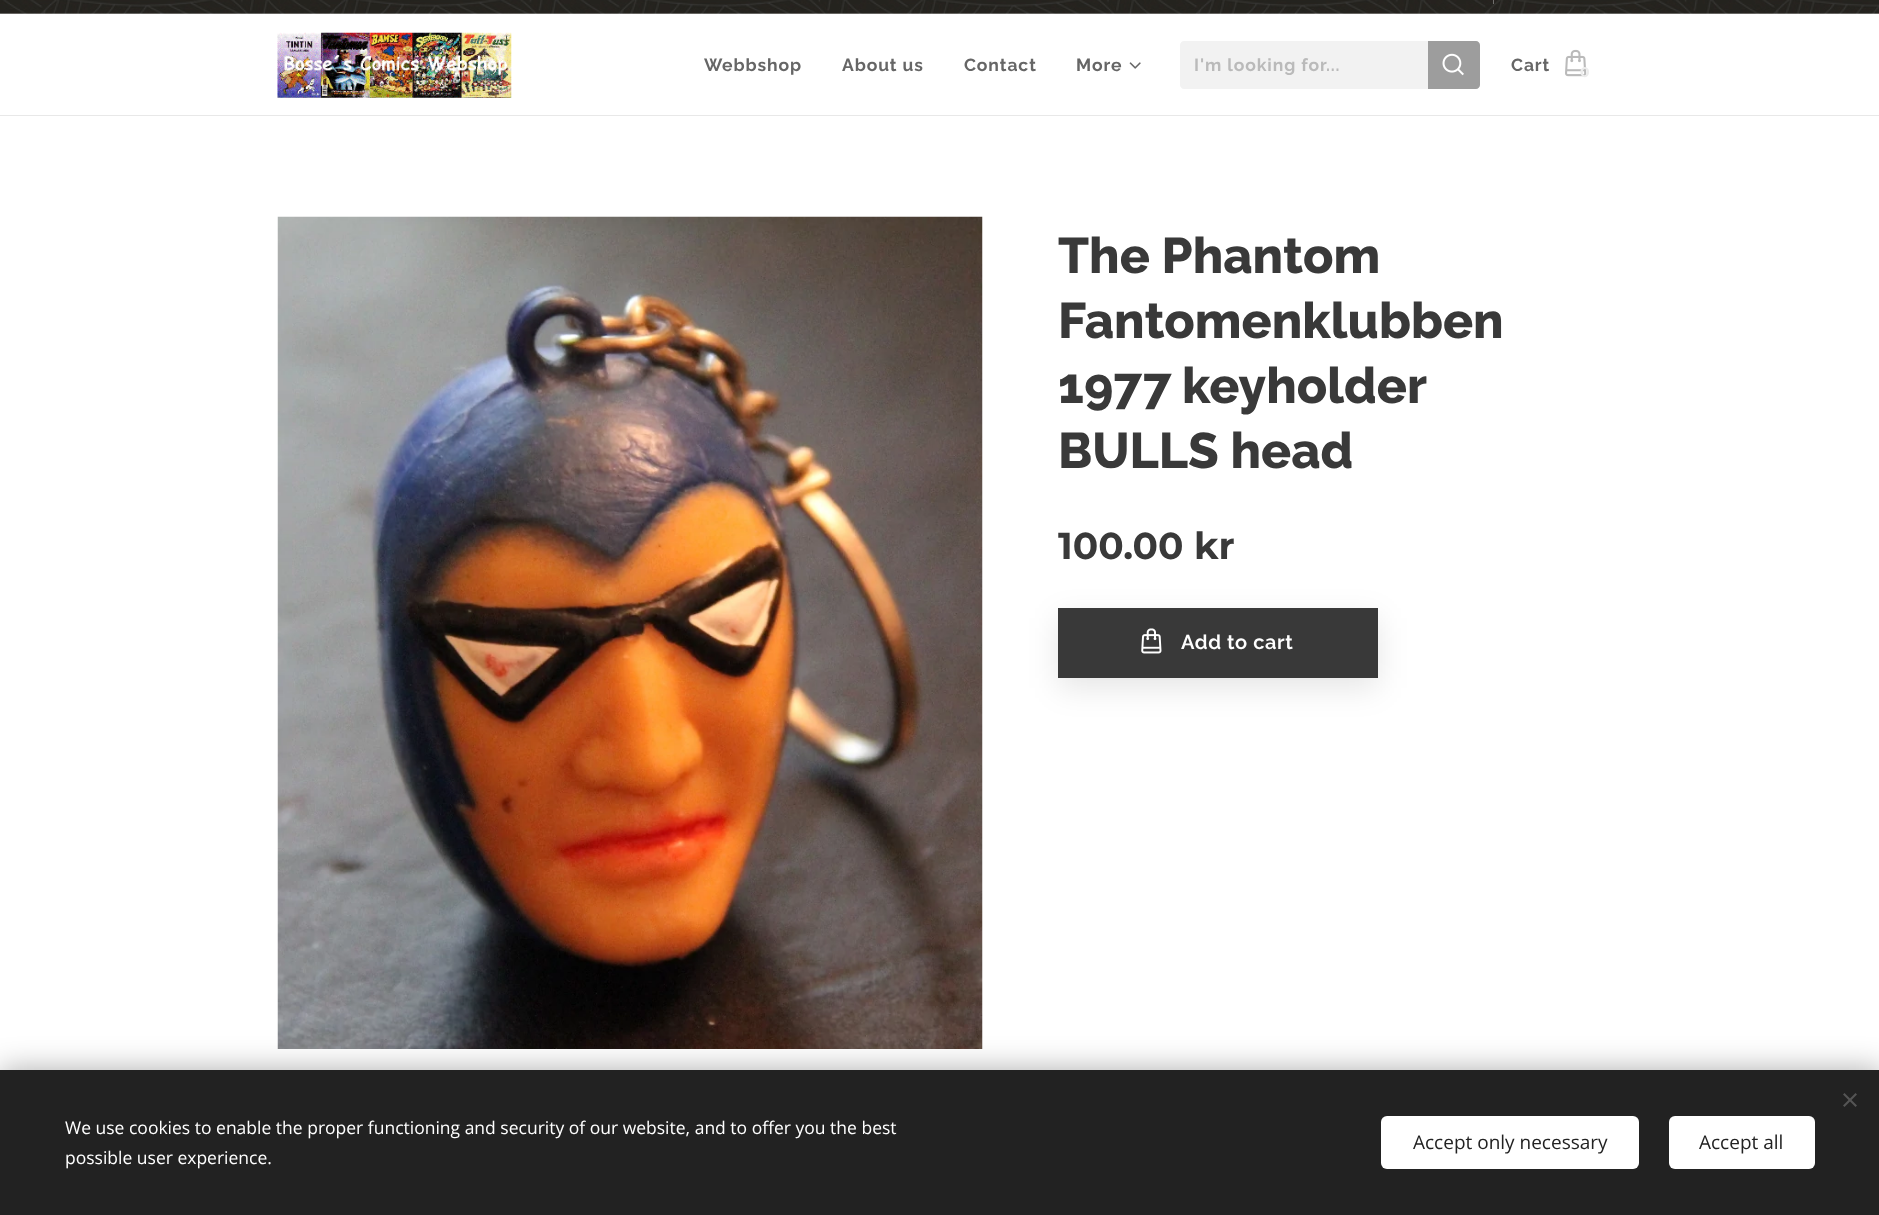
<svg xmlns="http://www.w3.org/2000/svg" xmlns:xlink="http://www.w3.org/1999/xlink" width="1879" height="1215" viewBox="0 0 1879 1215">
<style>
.cls-1{font:bold 17.5px Raleway;letter-spacing:0.9px;fill:#666666}
.cls-2{font:bold 17.5px Raleway;letter-spacing:0.9px;fill:#bababa}
.cls-3{font:bold 14px Montserrat;fill:#ececec}
.cls-4{font:800 50px Raleway;fill:#393939}
.cls-5{font:bold 37.5px Montserrat;fill:#393939}
.cls-6{font:600 20px Raleway;letter-spacing:0.6px;fill:#ffffff}
.cls-7{font:17.5px Open Sans;fill:#ffffff}
.cls-8{font:19px Open Sans;fill:#222222}
</style>
<rect width="100%" height="100%" fill="#ffffff"/>
<image xlink:href="image0.png" x="0" y="0" width="1879" height="14"/>
<rect fill="#72706e" x="1493" y="0" width="1" height="4"/>
<rect fill="#ffffff" fill-opacity="0.3" x="0" y="13" width="1879" height="1"/>
<image xlink:href="image1.png" x="277" y="32" width="235" height="66"/>
<image xlink:href="image2.png" x="1129" y="62" width="12" height="7"/>
<path fill="#f2f2f2" d="M1184 41H1428V89H1184C1182 89 1180 87 1180 85V45C1180 43 1182 41 1184 41Z"/>
<path fill="#9d9d9d" d="M1428 41H1476C1478 41 1480 43 1480 45V85C1480 87 1478 89 1476 89H1428Z"/>
<image xlink:href="image3.png" x="1442" y="53" width="22" height="23"/>
<image xlink:href="image4.png" x="1565" y="49" width="22" height="28"/>
<rect fill="#e8e8e8" x="0" y="115" width="1879" height="1"/>
<image xlink:href="image5.png" x="277" y="216" width="706" height="833"/>
<rect fill="#000000" fill-opacity="0.1" filter="blur(15.5px)" x="1058" y="618" width="320" height="70"/>
<rect fill="#393939" x="1058" y="608" width="320" height="70"/>
<image xlink:href="image6.png" x="1141" y="628" width="21" height="26"/>
<rect fill="#000000" fill-opacity="0.33" filter="blur(15.5px)" x="0" y="1070" width="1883" height="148"/>
<rect fill="#222222" x="0" y="1070" width="1879" height="145"/>
<path fill="#555555" d="M1843 1105.5L1855.5 1093L1857 1094.5L1844.5 1107Z"/>
<path fill="#555555" d="M1844.5 1093L1857 1105.5L1855.5 1107L1843 1094.5Z"/>
<rect fill="#ffffff" x="1381" y="1116" width="258" height="53" rx="6"/>
<rect fill="#ffffff" x="1669" y="1116" width="146" height="53" rx="6"/>
<text class="cls-1" x="704" y="71">Webbshop</text>
<text class="cls-1" x="842" y="71">About us</text>
<text class="cls-1" x="964" y="71">Contact</text>
<text class="cls-1" x="1076" y="71">More</text>
<text class="cls-2" x="1194" y="71">I'm looking for...</text>
<text class="cls-1" x="1511" y="71">Cart</text>
<text class="cls-3" x="1580" y="77">0</text>
<text class="cls-4"><tspan x="1058" y="273">The Phantom</tspan><tspan x="1058" y="338">Fantomenklubben</tspan><tspan x="1058" y="403" word-spacing="-1">1977 keyholder</tspan><tspan x="1058" y="468">BULLS head</tspan></text>
<text class="cls-5" x="1058" y="559">100.00 kr</text>
<text class="cls-6" x="1181" y="649">Add to cart</text>
<text class="cls-7"><tspan x="65" y="1134">We use cookies to enable the proper functioning and security of our website, and to offer you the best</tspan><tspan x="65" y="1164">possible user experience.</tspan></text>
<text class="cls-8" x="1413" y="1149">Accept only necessary</text>
<text class="cls-8" x="1699" y="1149">Accept all</text>
</svg>
